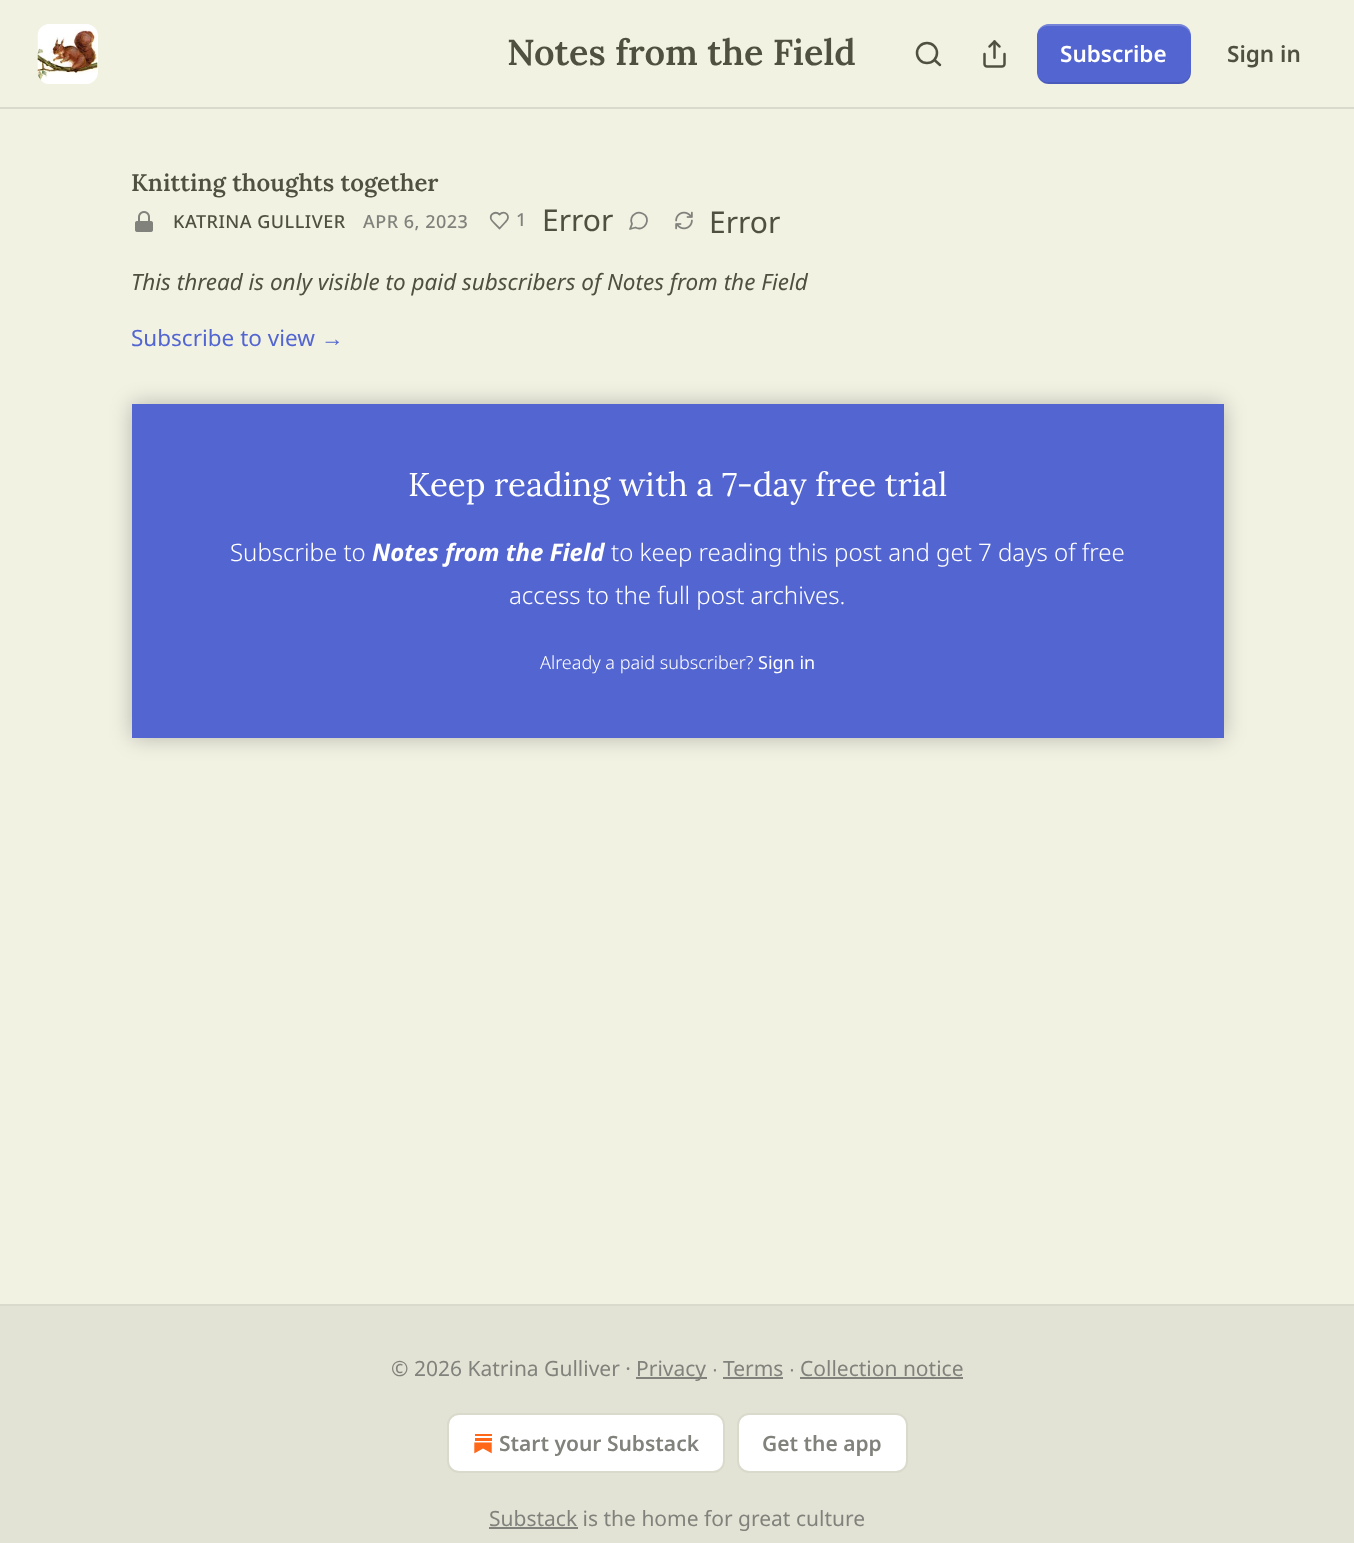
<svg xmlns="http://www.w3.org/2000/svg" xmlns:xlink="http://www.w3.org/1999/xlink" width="1354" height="1543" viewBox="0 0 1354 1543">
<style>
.cls-1{font:600 36px Lora;fill:#505041}
.cls-2{font:600 22.5px Noto Sans;fill:#ffffff}
.cls-3{font:600 22.5px Noto Sans;fill:#505041}
.cls-4{font:600 24px Lora;fill:#505041}
.cls-5{font:500 18px Noto Sans;letter-spacing:0.5px;fill:#505041}
.cls-6{font:500 18px Noto Sans;letter-spacing:0.5px;fill:#81827c}
.cls-7{font:30px Noto Sans;fill:#505041}
.cls-8{font:italic 22.5px Noto Sans;fill:#505041}
.cls-9{font:22.5px Noto Sans;fill:#5365d0}
.cls-10{font:22.5px Liberation Sans;fill:#5365d0}
.cls-11{font:33px Lora;fill:#ffffff}
.cls-12{font:300 24px Noto Sans;fill:#ffffff}
.cls-13{font:italic bold 24px Noto Sans;fill:#ffffff}
.cls-14{font:300 18px Noto Sans;fill:#ffffff}
.cls-15{font:18px Noto Sans;fill:#ffffff}
.cls-16{font:21px Noto Sans;fill:#81827c}
.cls-17{font:21px Liberation Sans;fill:#81827c}
.cls-18{font:600 21px Noto Sans;fill:#81827c}
</style>
<defs>
<clipPath id="clip1"><path d="M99 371H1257V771H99ZM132 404H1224V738H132Z" clip-rule="evenodd"/></clipPath>
</defs>
<rect width="100%" height="100%" fill="#f2f2e3"/>
<rect fill="#dadacc" x="0" y="107" width="1354" height="2"/>
<rect fill="#ffffff" x="38" y="24" width="60" height="60" rx="12"/>
<image xlink:href="image0.png" x="37" y="24" width="61" height="60"/>
<circle fill="none" stroke="#505041" stroke-width="2.5" cx="927" cy="53" r="10"/>
<path fill="none" stroke="#505041" stroke-width="2.5" stroke-linecap="round" stroke-linejoin="round" d="M940 65L934.5 60"/>
<image xlink:href="image1.png" x="983" y="40" width="23" height="28"/>
<rect fill="#5365d0" x="1037" y="24" width="154" height="60" rx="12"/>
<path fill="#000000" fill-opacity="0.1" d="M1038 76C1039 81 1044 84 1049 84H1179C1186 84 1191 79 1191 72V70C1191 77 1186 82 1179 82H1048C1044 82 1040 80 1038 76Z"/>
<path fill="#ffffff" fill-opacity="0.2" d="M1048 26H1179C1186 26 1191 31 1191 38V36C1191 29 1186 24 1179 24H1049C1044 24 1039 27 1038 32C1040 28 1044 26 1048 26Z"/>
<image xlink:href="image2.png" x="135" y="211" width="18" height="21"/>
<path fill="none" stroke="#81827c" stroke-width="1.8" stroke-linecap="round" stroke-linejoin="round" d="M505.5 222C512 216 504.5 209.5 499.5 214.5C496 211 489.5 213.5 491 219C492 221.5 497.5 226 499.5 228.5Z"/>
<path fill="none" stroke="#81827c" stroke-width="1.8" stroke-linecap="round" stroke-linejoin="round" d="M635.5 227.5C645 232.5 652 217.5 642.5 213.5C640 212.5 637.5 212.5 635.5 213.5C631.5 215.5 630 220 632 224L630 229Z"/>
<image xlink:href="image3.png" x="675" y="211" width="18" height="19"/>
<rect fill="#5365d0" x="132" y="404" width="1092" height="334"/>
<g clip-path="url(#clip1)">
<rect fill="#000000" fill-opacity="0.25" filter="blur(10.5px)" x="132" y="404" width="1092" height="334"/>
</g>
<rect fill="#e3e3d5" x="0" y="1306" width="1354" height="237"/>
<rect fill="#dadacc" x="0" y="1304" width="1354" height="2"/>
<rect fill="#81827c" x="636" y="1377" width="71" height="2"/>
<rect fill="#81827c" x="723" y="1377" width="60" height="2"/>
<rect fill="#81827c" x="800" y="1377" width="163" height="2"/>
<rect fill="#ffffff" stroke="#dadacc" stroke-width="2" x="448" y="1414" width="276" height="58" rx="11"/>
<image xlink:href="image4.png" x="474" y="1434" width="18" height="20"/>
<rect fill="#ffffff" stroke="#dadacc" stroke-width="2" x="738" y="1414" width="169" height="58" rx="11"/>
<rect fill="#81827c" x="489" y="1527" width="89" height="2"/>
<text class="cls-1" x="507" y="65">Notes from the Field</text>
<text class="cls-2" x="1060" y="62">Subscribe</text>
<text class="cls-3" x="1227" y="62">Sign in</text>
<text class="cls-4" x="131" y="191">Knitting thoughts together</text>
<text class="cls-5" x="173" y="228">KATRINA GULLIVER</text>
<text class="cls-6" x="363" y="228">APR 6, 2023</text>
<text class="cls-6" x="516" y="226">1</text>
<text class="cls-7" x="542" y="231">Error</text>
<text class="cls-7" x="709" y="233">Error</text>
<text class="cls-8" x="131" y="290">This thread is only visible to paid subscribers of Notes from the Field</text>
<text class="cls-9" x="131" y="346">Subscribe to view</text>
<text class="cls-10" x="321" y="346">→</text>
<text class="cls-11" x="408" y="496">Keep reading with a 7-day free trial</text>
<text class="cls-12" x="230" y="561">Subscribe to</text>
<text class="cls-13" x="372" y="561">Notes from the Field</text>
<text class="cls-12" x="611" y="561">to keep reading this post and get 7 days of free</text>
<text class="cls-12" x="509" y="604">access to the full post archives.</text>
<text class="cls-14" x="540" y="669">Already a paid subscriber?</text>
<text class="cls-15" x="758" y="669">Sign in</text>
<text class="cls-16" x="391" y="1376">© 2026 Katrina Gulliver ·</text>
<text class="cls-16" x="636" y="1376">Privacy</text>
<text class="cls-17" x="712" y="1376">∙</text>
<text class="cls-16" x="723" y="1376">Terms</text>
<text class="cls-17" x="789" y="1376">∙</text>
<text class="cls-16" x="800" y="1376">Collection notice</text>
<text class="cls-18" x="499" y="1451">Start your Substack</text>
<text class="cls-18" x="762" y="1451">Get the app</text>
<text class="cls-16" x="489" y="1526">Substack is the home for great culture</text>
</svg>
